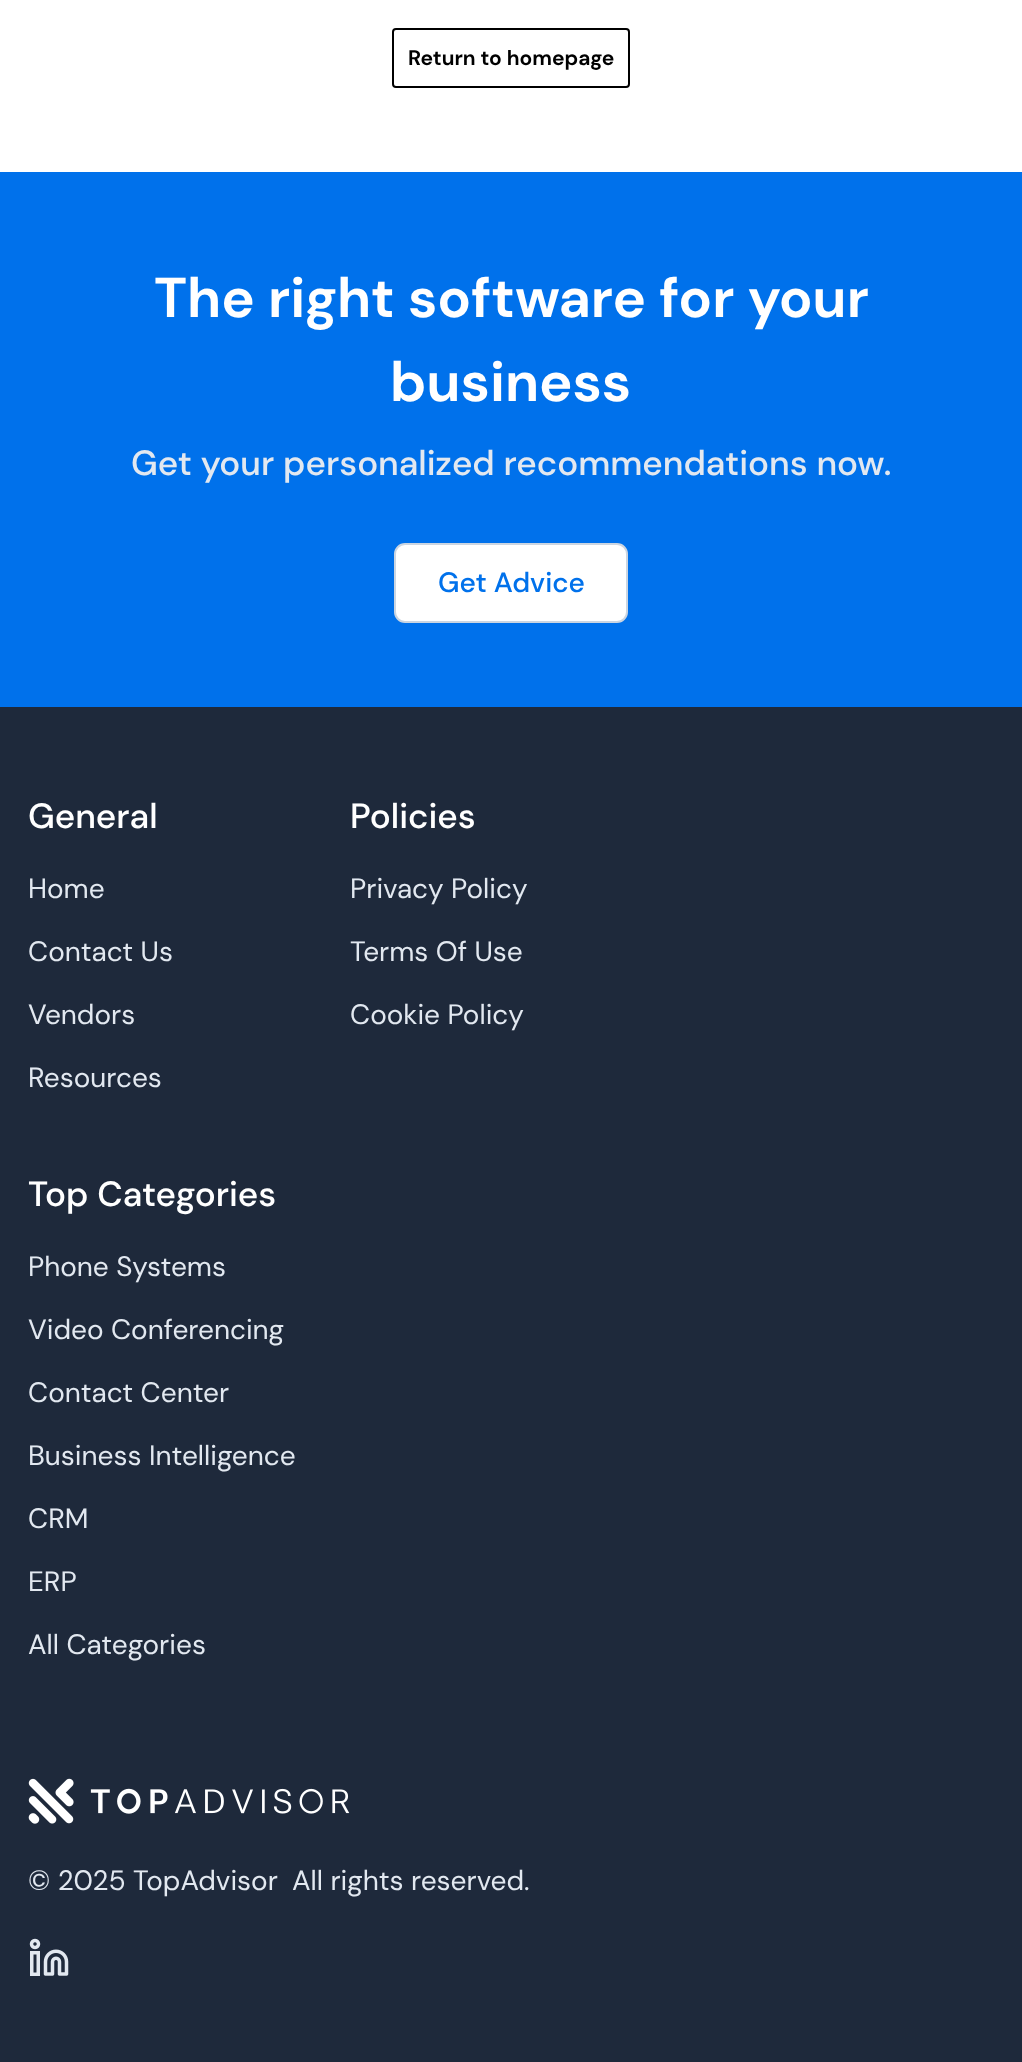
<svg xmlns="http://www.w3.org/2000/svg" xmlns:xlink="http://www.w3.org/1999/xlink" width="1022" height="2062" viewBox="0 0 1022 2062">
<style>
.cls-1{font:bold 21px DM Sans;fill:#000000}
.cls-2{font:bold 56px DM Sans;fill:#ffffff}
.cls-3{font:500 35px DM Sans;fill:#e2e8f0}
.cls-4{font:500 28px DM Sans;fill:#0071eb}
.cls-5{font:500 35px DM Sans;fill:#ffffff}
.cls-6{font:28px DM Sans;fill:#e2e8f0}
</style>
<rect width="100%" height="100%" fill="#ffffff"/>
<rect fill="none" stroke="#000000" stroke-width="2" x="393" y="29" width="236" height="58" rx="3"/>
<rect fill="#0071eb" x="0" y="172" width="1022" height="535"/>
<rect fill="#ffffff" stroke="#cbd5e1" stroke-width="2" x="395" y="544" width="232" height="78" rx="10"/>
<rect fill="#1e293b" x="0" y="707" width="1022" height="1355"/>
<image xlink:href="image0.png" x="28" y="1778" width="322" height="46"/>
<image xlink:href="image1.png" x="29" y="1938" width="40" height="38"/>
<text class="cls-1" x="408" y="65">Return to homepage</text>
<text class="cls-2" x="154" y="317">The right software for your</text>
<text class="cls-2" x="390" y="401">business</text>
<text class="cls-3" x="131" y="475">Get your personalized recommendations now.</text>
<text class="cls-4" x="438" y="592">Get Advice</text>
<text class="cls-5" x="28" y="828">General</text>
<text class="cls-6" x="28" y="898">Home</text>
<text class="cls-6" x="28" y="961">Contact Us</text>
<text class="cls-6" x="28" y="1024">Vendors</text>
<text class="cls-6" x="28" y="1087">Resources</text>
<text class="cls-5" x="350" y="828">Policies</text>
<text class="cls-6" x="350" y="898">Privacy Policy</text>
<text class="cls-6" x="350" y="961">Terms Of Use</text>
<text class="cls-6" x="350" y="1024">Cookie Policy</text>
<text class="cls-5" x="28" y="1206">Top Categories</text>
<text class="cls-6" x="28" y="1276">Phone Systems</text>
<text class="cls-6" x="28" y="1339">Video Conferencing</text>
<text class="cls-6" x="28" y="1402">Contact Center</text>
<text class="cls-6" x="28" y="1465">Business Intelligence</text>
<text class="cls-6" x="28" y="1528">CRM</text>
<text class="cls-6" x="28" y="1591">ERP</text>
<text class="cls-6" x="28" y="1654">All Categories</text>
<text class="cls-6" x="28" y="1890">© 2025 TopAdvisor</text>
<text class="cls-6" x="292" y="1890">All rights reserved.</text>
</svg>
